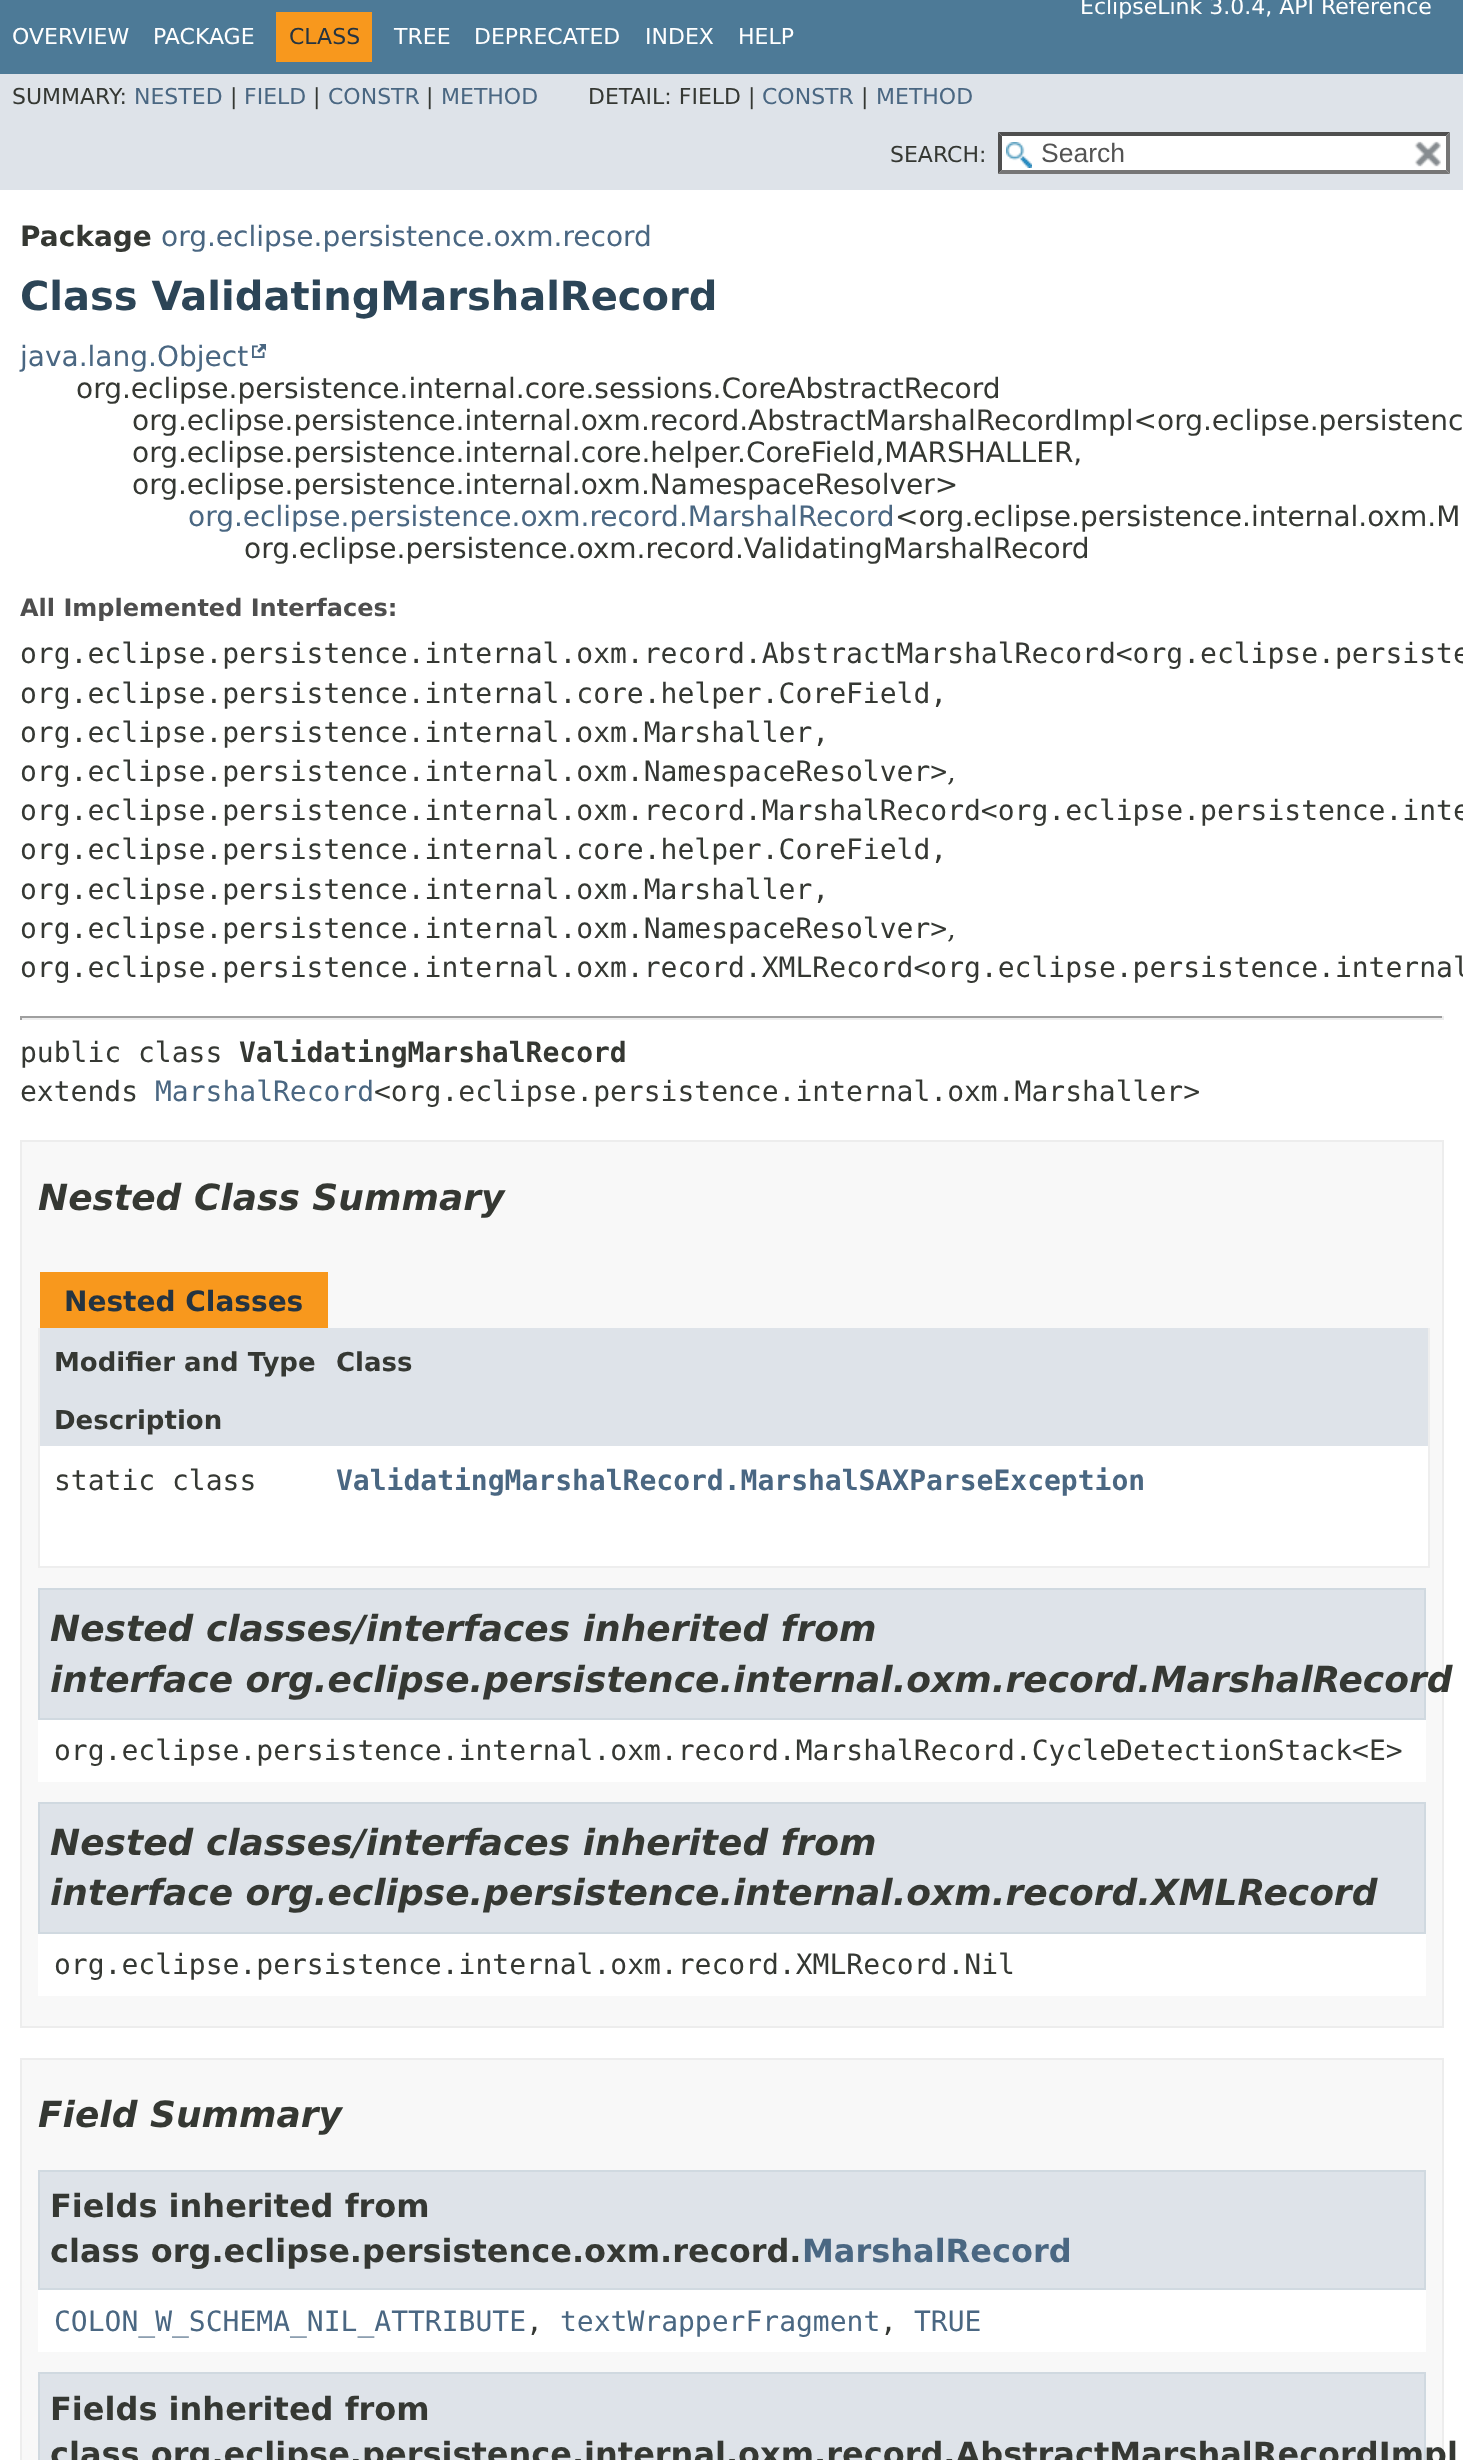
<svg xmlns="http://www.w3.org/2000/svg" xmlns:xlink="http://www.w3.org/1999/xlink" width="1463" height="2460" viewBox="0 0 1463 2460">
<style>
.cls-1{font:22px DejaVu Sans;fill:#ffffff}
.cls-2{font:22px DejaVu Sans;fill:#253441}
.cls-3{font:22px DejaVu Sans;fill:#353833}
.cls-4{font:22px DejaVu Sans;fill:#4a6782}
.cls-5{font:26.5px Liberation Sans;fill:#545454}
.cls-6{font:bold 28px DejaVu Sans;fill:#353833}
.cls-7{font:28px DejaVu Sans;fill:#4a6782}
.cls-8{font:bold 40px DejaVu Sans;fill:#2c4557}
.cls-9{font:28px DejaVu Sans;fill:#353833}
.cls-10{font:bold 24px DejaVu Sans;fill:#4e4e4e}
.cls-11{font:28px DejaVu Sans Mono;fill:#353833}
.cls-12{font:28px DejaVu Serif;fill:#353833}
.cls-13{font:bold 28px DejaVu Sans Mono;fill:#353833}
.cls-14{font:28px DejaVu Sans Mono;fill:#4a6782}
.cls-15{font:italic bold 36px DejaVu Sans;fill:#353833}
.cls-16{font:bold 28px DejaVu Sans;fill:#253441}
.cls-17{font:bold 26px DejaVu Sans;fill:#353833}
.cls-18{font:bold 28px DejaVu Sans Mono;fill:#4a6782}
.cls-19{font:bold 32px DejaVu Sans;fill:#353833}
.cls-20{font:bold 32px DejaVu Sans;fill:#4a6782}
</style>
<rect width="100%" height="100%" fill="#ffffff"/>
<rect fill="#4d7a97" x="0" y="0" width="1463" height="74"/>
<rect fill="#f8981d" x="276" y="12" width="96" height="50"/>
<rect fill="#dee3e9" x="0" y="74" width="1463" height="116"/>
<rect fill="#ffffff" x="998" y="132" width="452" height="42"/>
<image xlink:href="image0.png" x="1006" y="142" width="26" height="26"/>
<path fill="#4f4f4f" d="M998 132H1450L1446 136H1002Z"/>
<path fill="#767676" d="M1450 132V174L1446 170V136Z"/>
<path fill="#767676" d="M1450 174H998L1002 170H1446Z"/>
<path fill="#4f4f4f" d="M998 174V132L1002 136V170Z"/>
<image xlink:href="image1.png" x="1414" y="141" width="27" height="26"/>
<image xlink:href="image2.png" x="252" y="344" width="14" height="14"/>
<rect fill="#9f9f9f" x="20" y="1016" width="1424" height="2"/>
<rect fill="#eeeeee" x="1442" y="1016" width="2" height="4"/>
<rect fill="#eeeeee" x="20" y="1018" width="1424" height="2"/>
<rect fill="#9f9f9f" x="20" y="1016" width="2" height="4"/>
<rect fill="#f8f8f8" stroke="#ededed" stroke-width="2" x="21" y="1141" width="1422" height="886"/>
<rect fill="#f8981d" x="40" y="1272" width="288" height="56"/>
<rect fill="#eeeeee" x="1428" y="1328" width="2" height="240"/>
<rect fill="#eeeeee" x="38" y="1566" width="1392" height="2"/>
<rect fill="#eeeeee" x="38" y="1328" width="2" height="240"/>
<rect fill="#dee3e9" x="40" y="1328" width="1388" height="60"/>
<rect fill="#dee3e9" x="40" y="1388" width="1388" height="58"/>
<rect fill="#ffffff" x="40" y="1446" width="1388" height="60"/>
<rect fill="#ffffff" x="40" y="1506" width="1388" height="60"/>
<rect fill="#ffffff" x="38" y="1720" width="1388" height="62"/>
<rect fill="#dee3e9" stroke="#d0d9e0" stroke-width="2" x="39" y="1589" width="1386" height="130"/>
<rect fill="#ffffff" x="38" y="1934" width="1388" height="62"/>
<rect fill="#dee3e9" stroke="#d0d9e0" stroke-width="2" x="39" y="1803" width="1386" height="130"/>
<rect fill="#f8f8f8" stroke="#ededed" stroke-width="2" x="21" y="2059" width="1422" height="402"/>
<rect fill="#ffffff" x="38" y="2290" width="1388" height="62"/>
<rect fill="#dee3e9" stroke="#d0d9e0" stroke-width="2" x="39" y="2171" width="1386" height="118"/>
<rect fill="#dee3e9" stroke="#d0d9e0" stroke-width="2" x="39" y="2373" width="1386" height="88"/>
<text class="cls-1" x="1080" y="14">EclipseLink 3.0.4, API Reference</text>
<text class="cls-1" x="12" y="44">OVERVIEW</text>
<text class="cls-1" x="153" y="44">PACKAGE</text>
<text class="cls-2" x="289" y="44">CLASS</text>
<text class="cls-1" x="394" y="44">TREE</text>
<text class="cls-1" x="474" y="44">DEPRECATED</text>
<text class="cls-1" x="645" y="44">INDEX</text>
<text class="cls-1" x="738" y="44">HELP</text>
<text class="cls-3" x="12" y="104">SUMMARY:</text>
<text class="cls-4" x="134" y="104">NESTED</text>
<text class="cls-3" x="230" y="104">|</text>
<text class="cls-4" x="244" y="104">FIELD</text>
<text class="cls-3" x="313" y="104">|</text>
<text class="cls-4" x="328" y="104">CONSTR</text>
<text class="cls-3" x="426" y="104">|</text>
<text class="cls-4" x="441" y="104">METHOD</text>
<text class="cls-3" x="588" y="104">DETAIL: FIELD |</text>
<text class="cls-4" x="762" y="104">CONSTR</text>
<text class="cls-3" x="861" y="104">|</text>
<text class="cls-4" x="876" y="104">METHOD</text>
<text class="cls-3" x="890" y="162">SEARCH:</text>
<text class="cls-5" x="1041" y="162">Search</text>
<text class="cls-6" x="20" y="246">Package</text>
<text class="cls-7" x="161" y="246">org.eclipse.persistence.oxm.record</text>
<text class="cls-8" x="20" y="310">Class ValidatingMarshalRecord</text>
<text class="cls-7" x="20" y="366">java.lang.Object</text>
<text class="cls-9" x="76" y="398">org.eclipse.persistence.internal.core.sessions.CoreAbstractRecord</text>
<text class="cls-9"><tspan x="132" y="430">org.eclipse.persistence.internal.oxm.record.AbstractMarshalRecordImpl&lt;org.eclipse.persistenc</tspan><tspan x="132" y="462">org.eclipse.persistence.internal.core.helper.CoreField,MARSHALLER,</tspan><tspan x="132" y="494">org.eclipse.persistence.internal.oxm.NamespaceResolver&gt;</tspan></text>
<text class="cls-7" x="188" y="526">org.eclipse.persistence.oxm.record.MarshalRecord</text>
<text class="cls-9" x="895" y="526">&lt;org.eclipse.persistence.internal.oxm.M</text>
<text class="cls-9" x="244" y="558">org.eclipse.persistence.oxm.record.ValidatingMarshalRecord</text>
<text class="cls-10" x="20" y="616">All Implemented Interfaces:</text>
<text class="cls-11"><tspan x="20" y="663">org.eclipse.persistence.internal.oxm.record.AbstractMarshalRecord&lt;org.eclipse.persiste</tspan><tspan x="20" y="703">org.eclipse.persistence.internal.core.helper.CoreField,</tspan><tspan x="20" y="742">org.eclipse.persistence.internal.oxm.Marshaller,</tspan><tspan x="20" y="781">org.eclipse.persistence.internal.oxm.NamespaceResolver&gt;</tspan></text>
<text class="cls-12" x="947" y="781">,</text>
<text class="cls-11"><tspan x="20" y="820">org.eclipse.persistence.internal.oxm.record.MarshalRecord&lt;org.eclipse.persistence.inte</tspan><tspan x="20" y="859">org.eclipse.persistence.internal.core.helper.CoreField,</tspan><tspan x="20" y="899">org.eclipse.persistence.internal.oxm.Marshaller,</tspan><tspan x="20" y="938">org.eclipse.persistence.internal.oxm.NamespaceResolver&gt;</tspan></text>
<text class="cls-12" x="947" y="938">,</text>
<text class="cls-11" x="20" y="977">org.eclipse.persistence.internal.oxm.record.XMLRecord&lt;org.eclipse.persistence.internal</text>
<text class="cls-11" x="20" y="1062">public class</text>
<text class="cls-13" x="239" y="1062">ValidatingMarshalRecord</text>
<text class="cls-11" x="20" y="1101">extends</text>
<text class="cls-14" x="155" y="1101">MarshalRecord</text>
<text class="cls-11" x="374" y="1101">&lt;org.eclipse.persistence.internal.oxm.Marshaller&gt;</text>
<text class="cls-15" x="38" y="1210">Nested Class Summary</text>
<text class="cls-16" x="64" y="1311">Nested Classes</text>
<text class="cls-17" x="54" y="1371">Modifier and Type</text>
<text class="cls-17" x="336" y="1371">Class</text>
<text class="cls-17" x="54" y="1429">Description</text>
<text class="cls-11" x="54" y="1490">static class</text>
<text class="cls-18" x="336" y="1490">ValidatingMarshalRecord.MarshalSAXParseException</text>
<text class="cls-15"><tspan x="50" y="1641">Nested classes/interfaces inherited from</tspan><tspan x="50" y="1692">interface org.eclipse.persistence.internal.oxm.record.MarshalRecord</tspan></text>
<text class="cls-11" x="54" y="1760">org.eclipse.persistence.internal.oxm.record.MarshalRecord.CycleDetectionStack&lt;E&gt;</text>
<text class="cls-15"><tspan x="50" y="1855">Nested classes/interfaces inherited from</tspan><tspan x="50" y="1905">interface org.eclipse.persistence.internal.oxm.record.XMLRecord</tspan></text>
<text class="cls-11" x="54" y="1974">org.eclipse.persistence.internal.oxm.record.XMLRecord.Nil</text>
<text class="cls-15" x="38" y="2127">Field Summary</text>
<text class="cls-19"><tspan x="50" y="2217">Fields inherited from</tspan><tspan x="50" y="2262">class org.eclipse.persistence.oxm.record.</tspan></text>
<text class="cls-20" x="802" y="2262">MarshalRecord</text>
<text class="cls-14" x="54" y="2331">COLON_W_SCHEMA_NIL_ATTRIBUTE</text>
<text class="cls-11" x="526" y="2331">,</text>
<text class="cls-14" x="560" y="2331">textWrapperFragment</text>
<text class="cls-11" x="880" y="2331">,</text>
<text class="cls-14" x="914" y="2331">TRUE</text>
<text class="cls-19"><tspan x="50" y="2420">Fields inherited from</tspan><tspan x="50" y="2465">class org.eclipse.persistence.internal.oxm.record.AbstractMarshalRecordImpl</tspan></text>
</svg>
